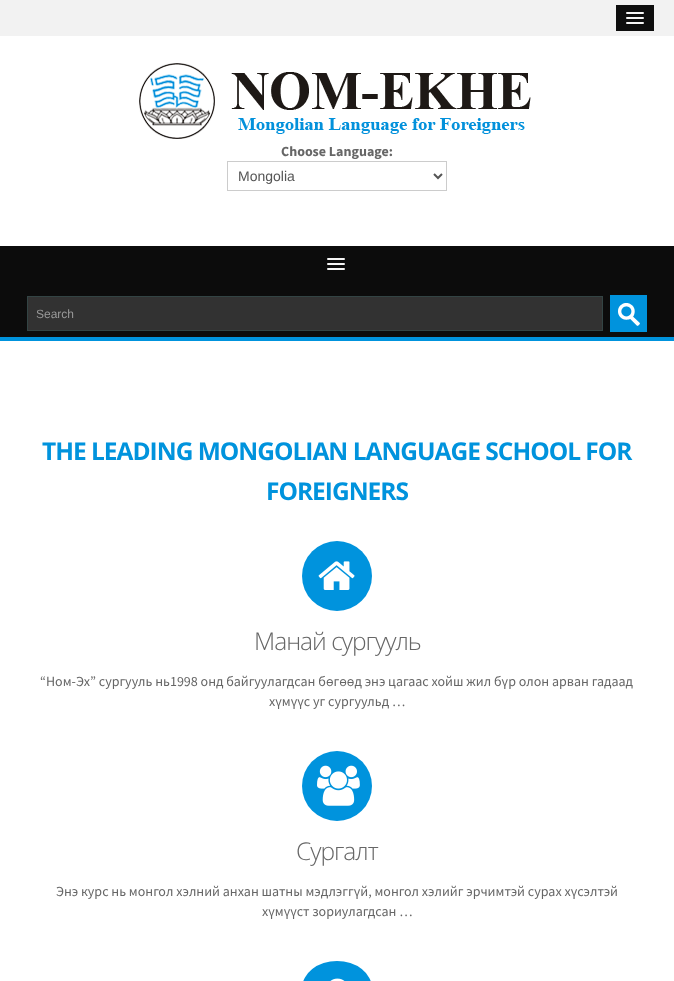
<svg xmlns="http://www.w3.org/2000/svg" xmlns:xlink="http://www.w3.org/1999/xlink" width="674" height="981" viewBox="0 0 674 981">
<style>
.cls-1{font:bold 14px Source Sans Pro;fill:#666666}
.cls-2{font:14px Liberation Sans;fill:#555555}
.cls-3{font:12px Liberation Sans;fill:#999999}
.cls-4{font:bold 24.5px Open Sans;letter-spacing:-1px;fill:#0093dd}
.cls-5{font:300 24.5px Open Sans;letter-spacing:-1px;fill:#666666}
.cls-6{font:14px Source Sans Pro;fill:#666666}
</style>
<rect width="100%" height="100%" fill="#ffffff"/>
<rect fill="#f2f2f2" x="0" y="0" width="674" height="36"/>
<rect fill="#0e0e0e" x="616" y="5" width="38" height="26"/>
<path fill="#0b0b0b" d="M626 13.5C625 15.5 629.5 15 629.5 15H640.5C640.5 15 645 15.5 644 13.5C643 14.5 636.5 14 635 14C633.5 14 627 14.5 626 13.5Z"/>
<rect fill="#f5f5f5" x="626" y="12" width="18" height="2" rx="1"/>
<path fill="#0b0b0b" d="M626 18.5C625 20.5 629.5 20 629.5 20H640.5C640.5 20 645 20.5 644 18.5C643 19.5 636.5 19 635 19C633.5 19 627 19.5 626 18.5Z"/>
<rect fill="#f5f5f5" x="626" y="17" width="18" height="2" rx="1"/>
<path fill="#0b0b0b" d="M626 23.5C625 25.5 629.5 25 629.5 25H640.5C640.5 25 645 25.5 644 23.5C643 24.5 636.5 24 635 24C633.5 24 627 24.5 626 23.5Z"/>
<rect fill="#f5f5f5" x="626" y="22" width="18" height="2" rx="1"/>
<image xlink:href="image0.png" x="139" y="63" width="392" height="76"/>
<rect fill="none" stroke="#cccccc" x="227.5" y="161.5" width="219" height="29"/>
<path fill="none" stroke="#555555" stroke-width="2" d="M434 174L438 178L442 174"/>
<rect fill="#0c0c0c" x="0" y="246" width="674" height="91"/>
<rect fill="#f5f5f5" x="327" y="258" width="18" height="2" rx="1"/>
<rect fill="#f5f5f5" x="327" y="263" width="18" height="2" rx="1"/>
<rect fill="#f5f5f5" x="327" y="268" width="18" height="2" rx="1"/>
<rect fill="#0093dd" x="0" y="337" width="674" height="4"/>
<rect fill="#323232" stroke="#334444" x="27.5" y="296.5" width="575" height="34"/>
<rect fill="#0093dd" x="610" y="295" width="37" height="37"/>
<image xlink:href="image1.png" x="618" y="303" width="22" height="23"/>
<circle fill="#0093dd" cx="337" cy="576" r="35"/>
<image xlink:href="image2.png" x="318" y="561" width="37" height="29"/>
<circle fill="#0093dd" cx="337" cy="786" r="35"/>
<image xlink:href="image3.png" x="317" y="765" width="43" height="41"/>
<rect fill="#0093dd" x="302" y="961" width="70" height="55" rx="35"/>
<image xlink:href="image4.png" x="330" y="978" width="15" height="3"/>
<text class="cls-1" x="281" y="156">Choose Language:</text>
<text class="cls-2" x="238" y="181">Mongolia</text>
<text class="cls-3" x="36" y="318">Search</text>
<text class="cls-4" x="42" y="460">THE LEADING MONGOLIAN LANGUAGE SCHOOL FOR</text>
<text class="cls-4" x="266" y="500">FOREIGNERS</text>
<text class="cls-5" x="254" y="650">Манай сургууль</text>
<text class="cls-6" x="40" y="686">“Ном-Эх” сургууль нь1998 онд байгуулагдсан бөгөөд энэ цагаас хойш жил бүр олон арван гадаад</text>
<text class="cls-6" x="269" y="706">хүмүүс уг сургуульд …</text>
<text class="cls-5" x="296" y="860">Сургалт</text>
<text class="cls-6" x="56" y="896">Энэ курс нь монгол хэлний анхан шатны мэдлэггүй, монгол хэлийг эрчимтэй сурах хүсэлтэй</text>
<text class="cls-6" x="262" y="916">хүмүүст зориулагдсан …</text>
</svg>
